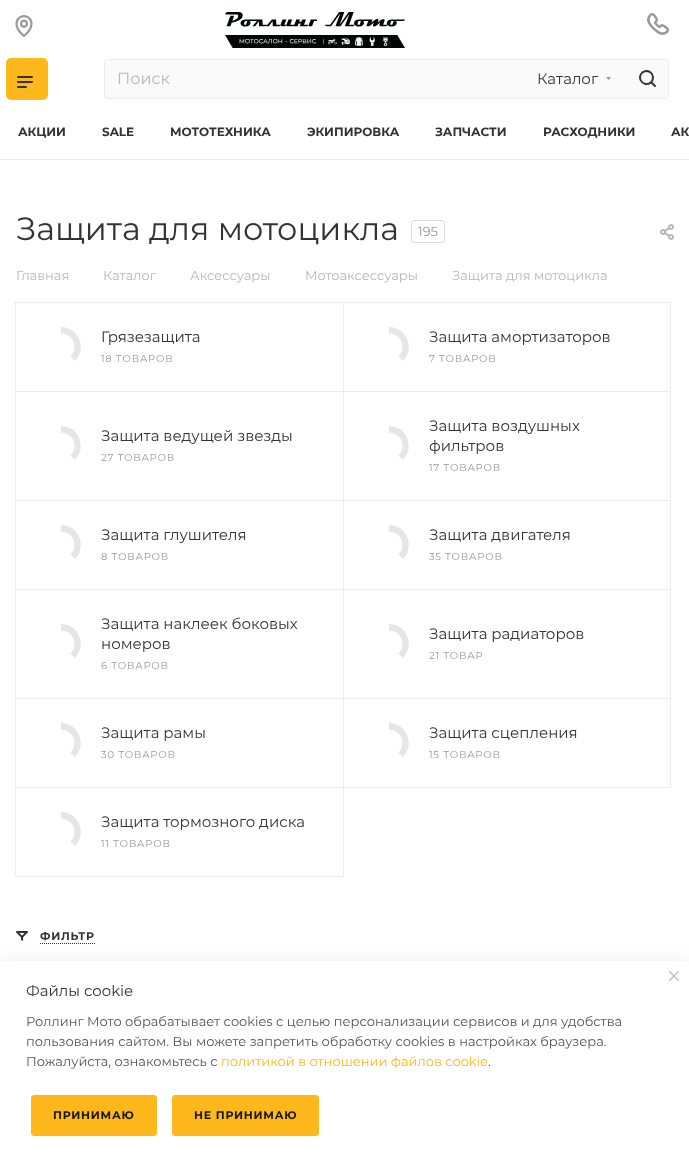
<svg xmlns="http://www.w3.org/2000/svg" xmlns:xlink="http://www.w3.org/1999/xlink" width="689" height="1161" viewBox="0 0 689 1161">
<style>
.cls-1{font:16px Montserrat;fill:#b8b8b8}
.cls-2{font:15px Montserrat;fill:#333333}
.cls-3{font:bold 12px Montserrat;fill:#333333}
.cls-4{font:32px Montserrat;fill:#333333}
.cls-5{font:13px Montserrat;fill:#999999}
.cls-6{font:13px Montserrat;fill:#b8b8b8}
.cls-7{font:10px Montserrat;letter-spacing:0.75px;fill:#999999}
.cls-8{font:bold 11px Montserrat;letter-spacing:0.75px;fill:#333333}
.cls-9{font:13px Montserrat;fill:#555555}
.cls-10{font:13px Montserrat;fill:#ffb81c}
.cls-11{font:bold 11px Montserrat;letter-spacing:0.75px;fill:#141515}
</style>
<rect width="100%" height="100%" fill="#ffffff"/>
<image xlink:href="image0.png" x="15" y="15" width="18" height="22"/>
<image xlink:href="image1.png" x="225" y="12" width="180" height="36"/>
<image xlink:href="image2.png" x="647" y="13" width="22" height="22"/>
<rect fill="#ffb81c" x="6" y="58" width="42" height="42" rx="5"/>
<image xlink:href="image3.png" x="17" y="76" width="16" height="12"/>
<rect fill="#fafafa" stroke="#ececec" x="104.5" y="59.5" width="564" height="39" rx="2.5"/>
<path fill="#999999" fill-rule="evenodd" d="M606 77H611L608.5 80Z"/>
<image xlink:href="image4.png" x="639" y="70" width="17" height="17"/>
<rect fill="#ececec" x="0" y="159" width="689" height="1"/>
<rect fill="none" stroke="#dbdbdb" x="411.5" y="220.5" width="33" height="22" rx="2.5"/>
<image xlink:href="image5.png" x="660" y="224" width="14" height="16"/>
<rect fill="none" stroke="#ececec" x="15.5" y="302.5" width="328" height="89"/>
<path fill="#e6e6e6" d="M61 327C78.5 327 87.5 348.5 75 361L70.5 356.5C79 348 73 333.5 61 333.5Z"/>
<rect fill="none" stroke="#ececec" x="343.5" y="302.5" width="327" height="89"/>
<path fill="#e6e6e6" d="M389 327C406.5 327 415.5 348.5 403 361L398.5 356.5C407 348 401 333.5 389 333.5Z"/>
<rect fill="none" stroke="#ececec" x="15.5" y="391.5" width="328" height="109"/>
<path fill="#e6e6e6" d="M61 426C78.5 426 87.5 447.5 75 460L70.5 455.5C79 447 73 432.5 61 432.5Z"/>
<rect fill="none" stroke="#ececec" x="343.5" y="391.5" width="327" height="109"/>
<path fill="#e6e6e6" d="M389 426C406.5 426 415.5 447.5 403 460L398.5 455.5C407 447 401 432.5 389 432.5Z"/>
<rect fill="none" stroke="#ececec" x="15.5" y="500.5" width="328" height="89"/>
<path fill="#e6e6e6" d="M61 525C78.5 525 87.5 546.5 75 559L70.5 554.5C79 546 73 531.5 61 531.5Z"/>
<rect fill="none" stroke="#ececec" x="343.5" y="500.5" width="327" height="89"/>
<path fill="#e6e6e6" d="M389 525C406.5 525 415.5 546.5 403 559L398.5 554.5C407 546 401 531.5 389 531.5Z"/>
<rect fill="none" stroke="#ececec" x="15.5" y="589.5" width="328" height="109"/>
<path fill="#e6e6e6" d="M61 624C78.5 624 87.5 645.5 75 658L70.5 653.5C79 645 73 630.5 61 630.5Z"/>
<rect fill="none" stroke="#ececec" x="343.5" y="589.5" width="327" height="109"/>
<path fill="#e6e6e6" d="M389 624C406.5 624 415.5 645.5 403 658L398.5 653.5C407 645 401 630.5 389 630.5Z"/>
<rect fill="none" stroke="#ececec" x="15.5" y="698.5" width="328" height="89"/>
<path fill="#e6e6e6" d="M61 723C78.5 723 87.5 744.5 75 757L70.5 752.5C79 744 73 729.5 61 729.5Z"/>
<rect fill="none" stroke="#ececec" x="343.5" y="698.5" width="327" height="89"/>
<path fill="#e6e6e6" d="M389 723C406.5 723 415.5 744.5 403 757L398.5 752.5C407 744 401 729.5 389 729.5Z"/>
<rect fill="none" stroke="#ececec" x="15.5" y="787.5" width="328" height="89"/>
<path fill="#e6e6e6" d="M61 812C78.5 812 87.5 833.5 75 846L70.5 841.5C79 833 73 818.5 61 818.5Z"/>
<image xlink:href="image6.png" x="16" y="931" width="12" height="10"/>
<path fill="none" stroke="#333333" stroke-dasharray="1 1" d="M40 943.5H95"/>
<rect fill="#000000" fill-opacity="0.12" filter="blur(10px)" x="0" y="966" width="689" height="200"/>
<rect fill="#ffffff" x="0" y="961" width="689" height="200"/>
<image xlink:href="image7.png" x="669" y="971" width="10" height="10"/>
<rect fill="#ffb81c" stroke="#ffb81c" x="31.5" y="1095.5" width="125" height="40" rx="2.5"/>
<rect fill="#ffb81c" stroke="#ffb81c" x="172.5" y="1095.5" width="146" height="40" rx="2.5"/>
<text class="cls-1" x="117" y="84">Поиск</text>
<text class="cls-2" x="537" y="84">Каталог</text>
<text class="cls-3" x="18" y="136">АКЦИИ</text>
<text class="cls-3" x="102" y="136">SALE</text>
<text class="cls-3" x="170" y="136">МОТОТЕХНИКА</text>
<text class="cls-3" x="307" y="136">ЭКИПИРОВКА</text>
<text class="cls-3" x="435" y="136">ЗАПЧАСТИ</text>
<text class="cls-3" x="543" y="136">РАСХОДНИКИ</text>
<text class="cls-3" x="671" y="136">АК</text>
<text class="cls-4" x="16" y="240">Защита для мотоцикла</text>
<text class="cls-5" x="418" y="236">195</text>
<text class="cls-6" x="16" y="280">Главная</text>
<text class="cls-6" x="103" y="280">Каталог</text>
<text class="cls-6" x="190" y="280">Аксессуары</text>
<text class="cls-6" x="305" y="280">Мотоаксессуары</text>
<text class="cls-6" x="452" y="280">Защита для мотоцикла</text>
<text class="cls-2" x="101" y="342">Грязезащита</text>
<text class="cls-7" x="101" y="362">18 ТОВАРОВ</text>
<text class="cls-2" x="429" y="342">Защита амортизаторов</text>
<text class="cls-7" x="429" y="362">7 ТОВАРОВ</text>
<text class="cls-2" x="101" y="441">Защита ведущей звезды</text>
<text class="cls-7" x="101" y="461">27 ТОВАРОВ</text>
<text class="cls-2"><tspan x="429" y="431">Защита воздушных</tspan><tspan x="429" y="451">фильтров</tspan></text>
<text class="cls-7" x="429" y="471">17 ТОВАРОВ</text>
<text class="cls-2" x="101" y="540">Защита глушителя</text>
<text class="cls-7" x="101" y="560">8 ТОВАРОВ</text>
<text class="cls-2" x="429" y="540">Защита двигателя</text>
<text class="cls-7" x="429" y="560">35 ТОВАРОВ</text>
<text class="cls-2"><tspan x="101" y="629">Защита наклеек боковых</tspan><tspan x="101" y="649">номеров</tspan></text>
<text class="cls-7" x="101" y="669">6 ТОВАРОВ</text>
<text class="cls-2" x="429" y="639">Защита радиаторов</text>
<text class="cls-7" x="429" y="659">21 ТОВАР</text>
<text class="cls-2" x="101" y="738">Защита рамы</text>
<text class="cls-7" x="101" y="758">30 ТОВАРОВ</text>
<text class="cls-2" x="429" y="738">Защита сцепления</text>
<text class="cls-7" x="429" y="758">15 ТОВАРОВ</text>
<text class="cls-2" x="101" y="827">Защита тормозного диска</text>
<text class="cls-7" x="101" y="847">11 ТОВАРОВ</text>
<text class="cls-8" x="40" y="940">ФИЛЬТР</text>
<text class="cls-2" x="26" y="996">Файлы cookie</text>
<text class="cls-9"><tspan x="26" y="1026">Роллинг Мото обрабатывает сookies с целью персонализации сервисов и для удобства</tspan><tspan x="26" y="1046">пользования сайтом. Вы можете запретить обработку сookies в настройках браузера.</tspan><tspan x="26" y="1066">Пожалуйста, ознакомьтесь с</tspan></text>
<text class="cls-10" x="221" y="1066">политикой в отношении файлов cookie</text>
<text class="cls-9" x="488" y="1066">.</text>
<text class="cls-11" x="53" y="1119">ПРИНИМАЮ</text>
<text class="cls-11" x="194" y="1119">НЕ ПРИНИМАЮ</text>
</svg>
